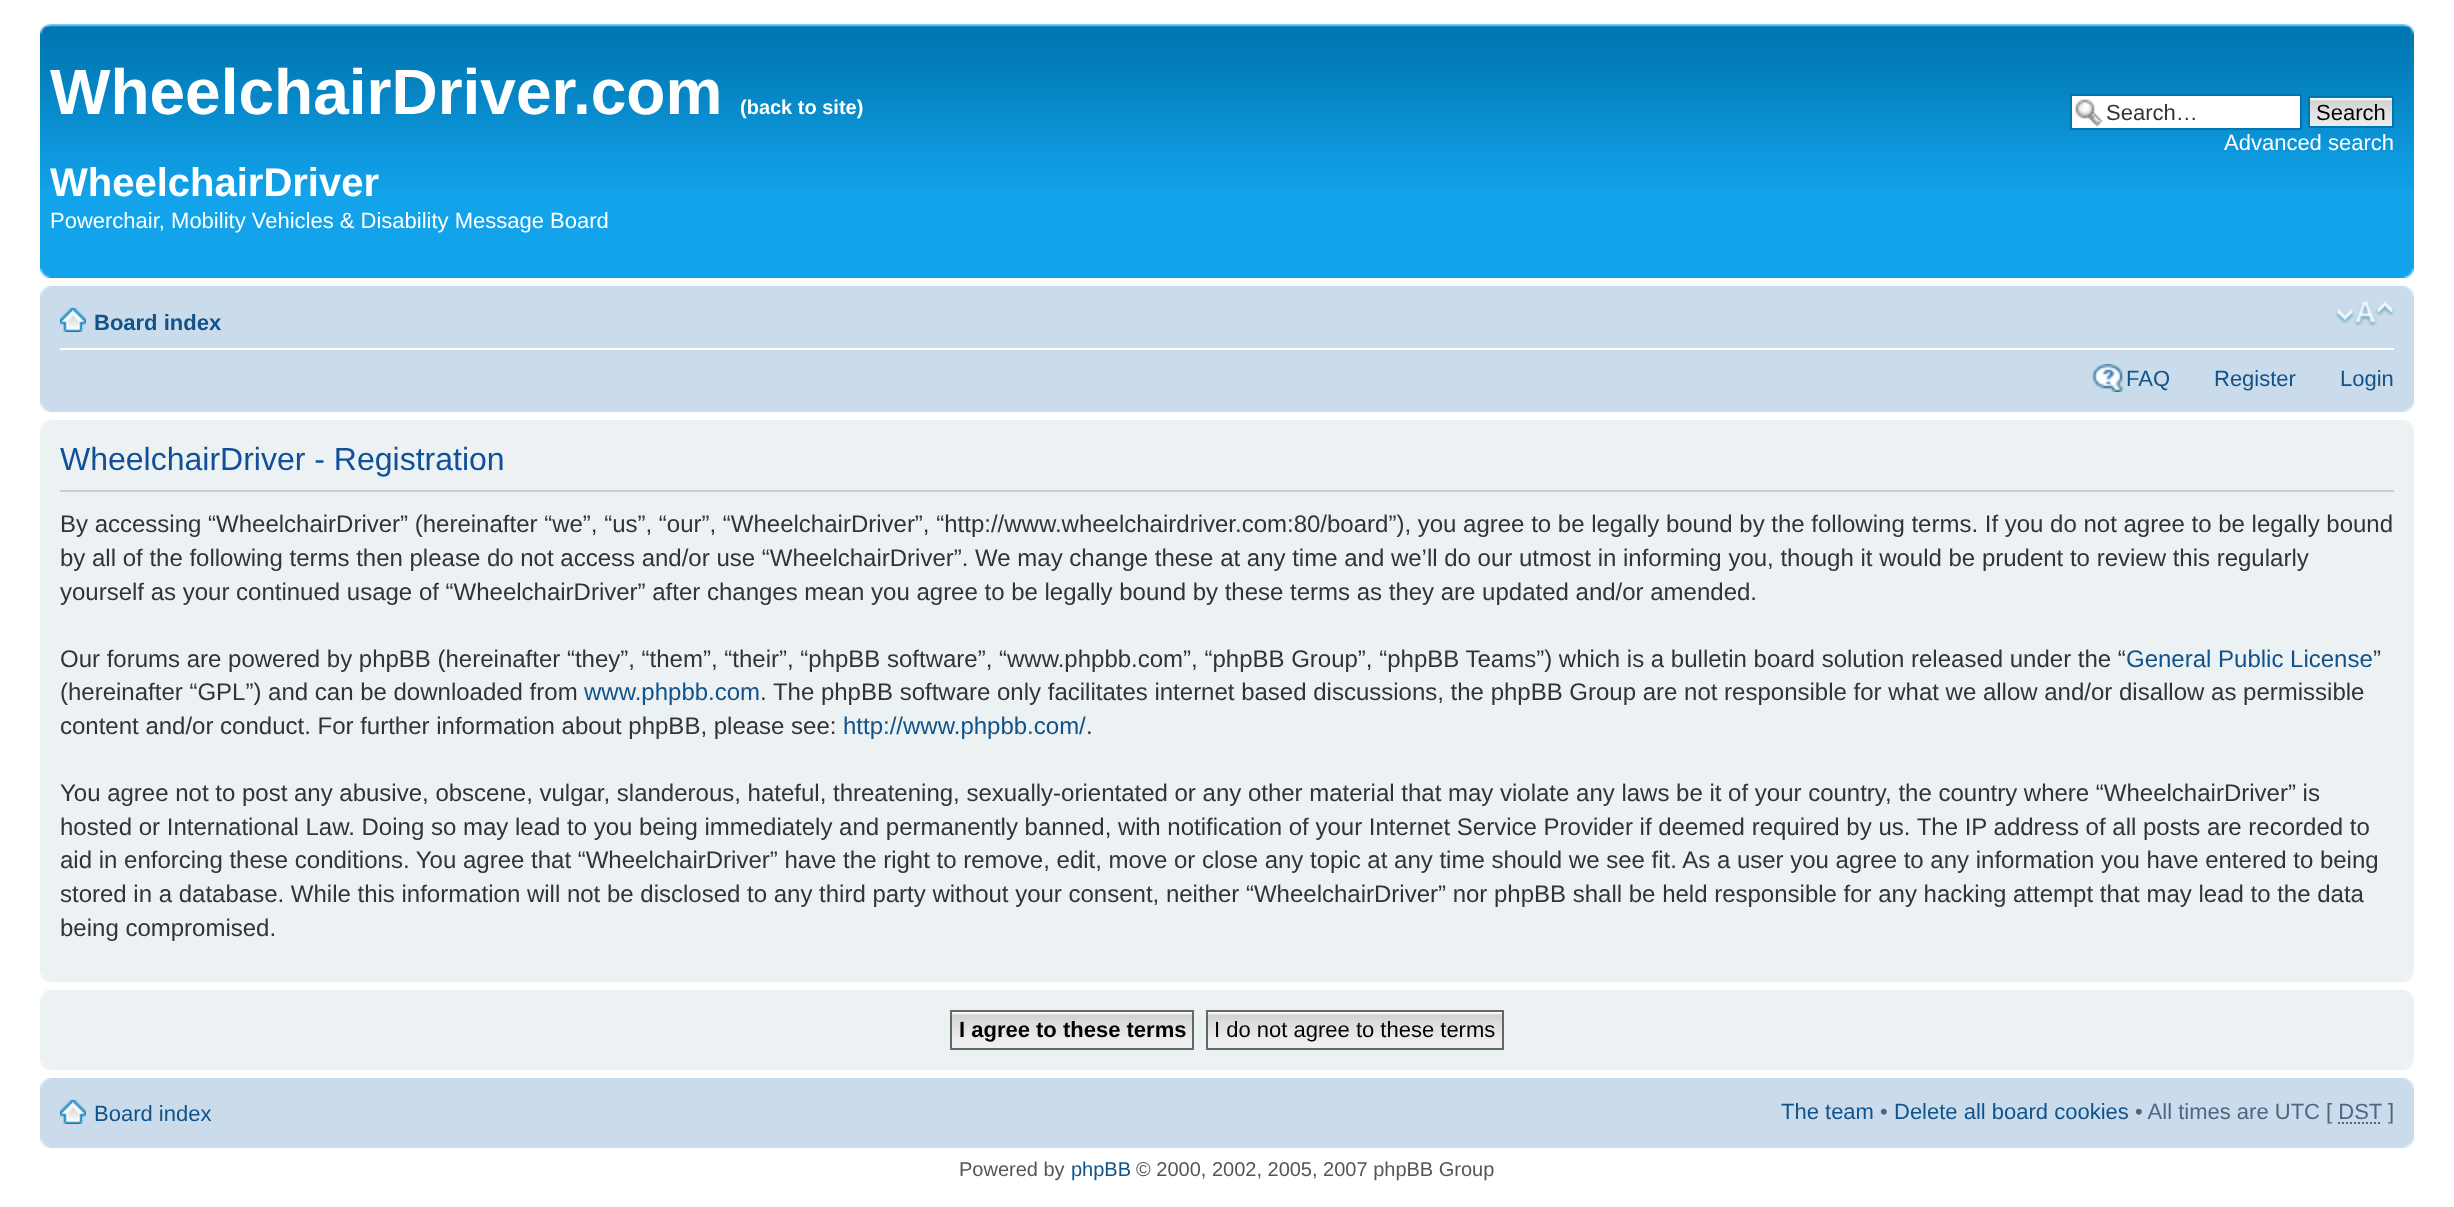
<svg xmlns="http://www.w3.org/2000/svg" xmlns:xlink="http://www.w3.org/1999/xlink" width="2454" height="1207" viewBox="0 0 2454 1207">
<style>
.cls-1{font:bold 64px Liberation Sans;fill:#ffffff}
.cls-2{font:bold 20px Liberation Sans;fill:#ffffff}
.cls-3{font:bold 40px Liberation Sans;fill:#ffffff}
.cls-4{font:22px Liberation Sans;fill:#ffffff}
.cls-5{font:22px Liberation Sans;fill:#333333}
.cls-6{font:22px Liberation Sans;fill:#000000}
.cls-7{font:bold 22px Liberation Sans;fill:#105289}
.cls-8{font:22px Liberation Sans;fill:#105289}
.cls-9{font:32px Liberation Sans;fill:#115098}
.cls-10{font:24px Liberation Sans;fill:#333333}
.cls-11{font:24px Liberation Sans;fill:#105289}
.cls-12{font:bold 22px Liberation Sans;fill:#000000}
.cls-13{font:22px Liberation Sans;fill:#536482}
.cls-14{font:20px Liberation Sans;fill:#555555}
.cls-15{font:20px Liberation Sans;fill:#105289}
</style>
<rect width="100%" height="100%" fill="#ffffff"/>
<rect fill="#12a3eb" x="40" y="188" width="2374" height="90"/>
<image xlink:href="image0.png" x="40" y="24" width="2374" height="164"/>
<image xlink:href="image1.png" x="40" y="24" width="11" height="10"/>
<image xlink:href="image2.png" x="2403" y="24" width="11" height="10"/>
<rect fill="#ffffff" x="2072" y="96" width="228" height="32"/>
<image xlink:href="image3.png" x="2075" y="99" width="28" height="27"/>
<rect fill="none" stroke="#0075b0" stroke-width="2" x="2071" y="95" width="230" height="34"/>
<image xlink:href="image4.png" x="2310" y="98" width="82" height="28"/>
<rect fill="none" stroke="#0075b0" stroke-width="2" x="2309" y="97" width="84" height="30"/>
<image xlink:href="image5.png" x="40" y="268" width="11" height="10"/>
<image xlink:href="image6.png" x="2403" y="268" width="11" height="10"/>
<rect fill="#cadceb" x="40" y="286" width="2374" height="126"/>
<image xlink:href="image7.png" x="40" y="286" width="11" height="10"/>
<image xlink:href="image8.png" x="2403" y="286" width="11" height="10"/>
<rect fill="#ffffff" x="60" y="348" width="2334" height="2"/>
<image xlink:href="image9.png" x="60" y="308" width="26" height="24"/>
<image xlink:href="image10.png" x="2336" y="301" width="58" height="26"/>
<image xlink:href="image11.png" x="2092" y="364" width="32" height="28"/>
<image xlink:href="image12.png" x="40" y="402" width="10" height="10"/>
<image xlink:href="image13.png" x="2404" y="402" width="10" height="10"/>
<rect fill="#ecf1f3" x="40" y="420" width="2374" height="562"/>
<image xlink:href="image14.png" x="40" y="420" width="9" height="10"/>
<image xlink:href="image15.png" x="2405" y="420" width="9" height="10"/>
<rect fill="#cccccc" x="60" y="490" width="2334" height="2"/>
<image xlink:href="image16.png" x="40" y="972" width="9" height="10"/>
<image xlink:href="image17.png" x="2405" y="972" width="9" height="10"/>
<rect fill="#ecf1f3" x="40" y="990" width="2374" height="80"/>
<image xlink:href="image14.png" x="40" y="990" width="9" height="10"/>
<image xlink:href="image15.png" x="2405" y="990" width="9" height="10"/>
<image xlink:href="image18.png" x="952" y="1012" width="240" height="36"/>
<rect fill="none" stroke="#666666" stroke-width="2" x="951" y="1011" width="242" height="38"/>
<image xlink:href="image19.png" x="1208" y="1012" width="294" height="36"/>
<rect fill="none" stroke="#666666" stroke-width="2" x="1207" y="1011" width="296" height="38"/>
<image xlink:href="image16.png" x="40" y="1060" width="9" height="10"/>
<image xlink:href="image17.png" x="2405" y="1060" width="9" height="10"/>
<rect fill="#cadceb" x="40" y="1078" width="2374" height="70"/>
<image xlink:href="image7.png" x="40" y="1078" width="11" height="10"/>
<image xlink:href="image8.png" x="2403" y="1078" width="11" height="10"/>
<image xlink:href="image9.png" x="60" y="1100" width="26" height="24"/>
<path fill="none" stroke="#536482" stroke-width="2" stroke-dasharray="2 2" d="M2338 1123H2382"/>
<image xlink:href="image12.png" x="40" y="1138" width="10" height="10"/>
<image xlink:href="image13.png" x="2404" y="1138" width="10" height="10"/>
<text class="cls-1" x="50" y="114">WheelchairDriver.com</text>
<text class="cls-2" x="740" y="114">(back to site)</text>
<text class="cls-3" x="50" y="196">WheelchairDriver</text>
<text class="cls-4" x="50" y="228">Powerchair, Mobility Vehicles &amp; Disability Message Board</text>
<text class="cls-5" x="2106" y="120">Search…</text>
<text class="cls-6" x="2316" y="120">Search</text>
<text class="cls-4" x="2224" y="150">Advanced search</text>
<text class="cls-7" x="94" y="330">Board index</text>
<text class="cls-8" x="2126" y="386">FAQ</text>
<text class="cls-8" x="2214" y="386">Register</text>
<text class="cls-8" x="2340" y="386">Login</text>
<text class="cls-9" x="60" y="470">WheelchairDriver - Registration</text>
<text class="cls-10"><tspan x="60" y="532">By accessing “WheelchairDriver” (hereinafter “we”, “us”, “our”, “WheelchairDriver”, “http://www.wheelchairdriver.com:80/board”), you agree to be legally bound by the following terms. If you do not agree to be legally bound</tspan><tspan x="60" y="566">by all of the following terms then please do not access and/or use “WheelchairDriver”. We may change these at any time and we’ll do our utmost in informing you, though it would be prudent to review this regularly</tspan><tspan x="60" y="600">yourself as your continued usage of “WheelchairDriver” after changes mean you agree to be legally bound by these terms as they are updated and/or amended.</tspan></text>
<text class="cls-10" x="60" y="667">Our forums are powered by phpBB (hereinafter “they”, “them”, “their”, “phpBB software”, “www.phpbb.com”, “phpBB Group”, “phpBB Teams”) which is a bulletin board solution released under the “</text>
<text class="cls-11" x="2126" y="667">General Public License</text>
<text class="cls-10" x="2373" y="667">”</text>
<text class="cls-10" x="60" y="700">(hereinafter “GPL”) and can be downloaded from</text>
<text class="cls-11" x="584" y="700">www.phpbb.com</text>
<text class="cls-10" x="760" y="700">. The phpBB software only facilitates internet based discussions, the phpBB Group are not responsible for what we allow and/or disallow as permissible</text>
<text class="cls-10" x="60" y="734">content and/or conduct. For further information about phpBB, please see:</text>
<text class="cls-11" x="843" y="734">http://www.phpbb.com/</text>
<text class="cls-10" x="1086" y="734">.</text>
<text class="cls-10"><tspan x="60" y="801">You agree not to post any abusive, obscene, vulgar, slanderous, hateful, threatening, sexually-orientated or any other material that may violate any laws be it of your country, the country where “WheelchairDriver” is</tspan><tspan x="60" y="835">hosted or International Law. Doing so may lead to you being immediately and permanently banned, with notification of your Internet Service Provider if deemed required by us. The IP address of all posts are recorded to</tspan><tspan x="60" y="868">aid in enforcing these conditions. You agree that “WheelchairDriver” have the right to remove, edit, move or close any topic at any time should we see fit. As a user you agree to any information you have entered to being</tspan><tspan x="60" y="902">stored in a database. While this information will not be disclosed to any third party without your consent, neither “WheelchairDriver” nor phpBB shall be held responsible for any hacking attempt that may lead to the data</tspan><tspan x="60" y="936">being compromised.</tspan></text>
<text class="cls-12" x="959" y="1037">I agree to these terms</text>
<text class="cls-6" x="1214" y="1037">I do not agree to these terms</text>
<text class="cls-8" x="94" y="1121">Board index</text>
<text class="cls-8" x="1781" y="1119">The team</text>
<text class="cls-13" x="1880" y="1119">•</text>
<text class="cls-8" x="1894" y="1119">Delete all board cookies</text>
<text class="cls-13" x="2135" y="1119">• All times are UTC [ DST</text>
<text class="cls-13" x="2388" y="1119">]</text>
<text class="cls-14" x="959" y="1176">Powered by</text>
<text class="cls-15" x="1071" y="1176">phpBB</text>
<text class="cls-14" x="1136" y="1176">© 2000, 2002, 2005, 2007 phpBB Group</text>
</svg>
